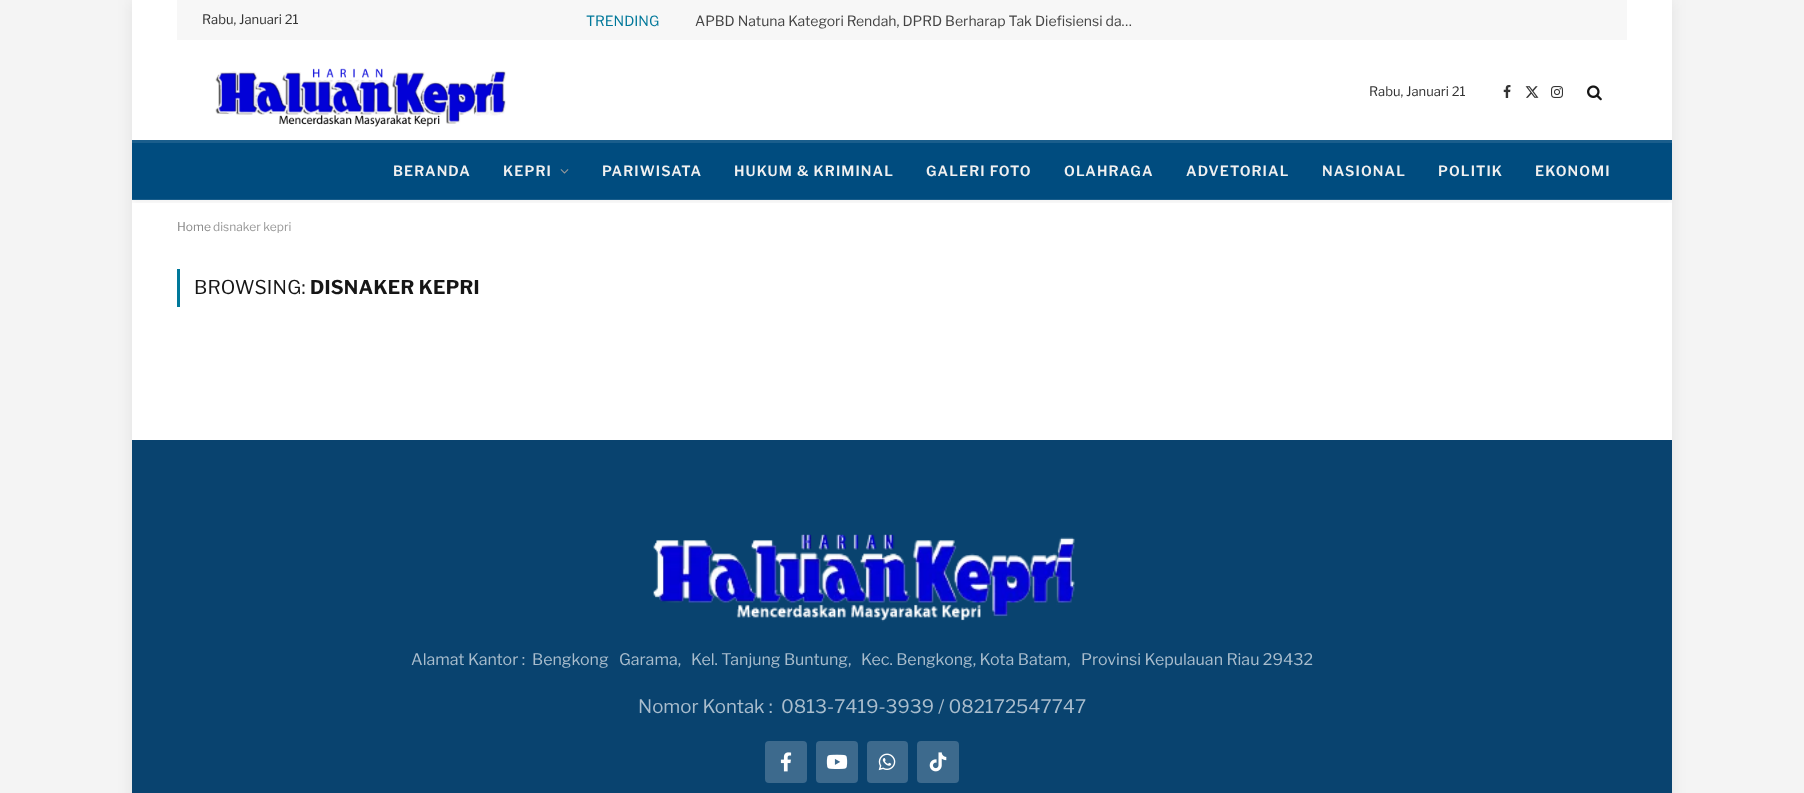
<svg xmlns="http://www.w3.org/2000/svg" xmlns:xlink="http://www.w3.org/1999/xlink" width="1804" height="793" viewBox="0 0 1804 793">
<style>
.cls-1{font:13px Libre Franklin;fill:#333333}
.cls-2{font:14px Libre Franklin;fill:#00789a}
.cls-3{font:14px Libre Franklin;fill:#444444}
.cls-4{font:600 14px Libre Franklin;letter-spacing:1.1px;fill:#f0f0f0}
.cls-5{font:12px Libre Franklin;fill:#8a8a8a}
.cls-6{font:12px Libre Franklin;fill:#999999}
.cls-7{font:19px Libre Franklin;letter-spacing:0.25px;fill:#161616}
.cls-8{font:bold 19px Libre Franklin;letter-spacing:0.25px;fill:#161616}
.cls-9{font:16px Libre Franklin;fill:#a9bdcd}
.cls-10{font:18.7px Libre Franklin;fill:#a9bdcd}
</style>
<defs>
<clipPath id="clip1"><rect x="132" y="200" width="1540" height="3"/></clipPath>
</defs>
<rect width="100%" height="100%" fill="#f4f4f4"/>
<rect fill="#000000" fill-opacity="0.08" filter="blur(7.5px)" x="132" y="0" width="1540" height="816"/>
<rect fill="#ffffff" x="132" y="0" width="1540" height="440"/>
<g clip-path="url(#clip1)">
<rect fill="#000000" fill-opacity="0.05" filter="blur(2px)" x="132" y="3" width="1540" height="200"/>
</g>
<rect fill="#f7f7f7" x="177" y="0" width="1450" height="40"/>
<image xlink:href="image0.png" x="215" y="68" width="291" height="59"/>
<image xlink:href="image1.png" x="1503" y="85" width="8" height="13"/>
<image xlink:href="image2.png" x="1525" y="86" width="14" height="12"/>
<image xlink:href="image3.png" x="1551" y="86" width="12" height="12"/>
<image xlink:href="image4.png" x="1587" y="85" width="15" height="16"/>
<rect fill="#004c7f" x="132" y="143" width="1540" height="56"/>
<rect fill="#1a5e8c" x="132" y="140" width="1540" height="3"/>
<rect fill="#1a5e8c" x="132" y="199" width="1540" height="1"/>
<image xlink:href="image5.png" x="560" y="169" width="9" height="5"/>
<rect fill="#00789a" x="177" y="269" width="3" height="38"/>
<rect fill="#09436f" x="132" y="440" width="1540" height="353"/>
<image xlink:href="image6.png" x="653" y="534" width="422" height="88"/>
<rect fill="#3d6a8d" x="765" y="741" width="42" height="42" rx="4"/>
<image xlink:href="image7.png" x="780" y="752" width="12" height="20"/>
<rect fill="#3d6a8d" x="816" y="741" width="42" height="42" rx="4"/>
<image xlink:href="image8.png" x="826" y="754" width="22" height="15"/>
<rect fill="#3d6a8d" x="867" y="741" width="41" height="42" rx="4"/>
<image xlink:href="image9.png" x="878" y="753" width="18" height="18"/>
<rect fill="#3d6a8d" x="917" y="741" width="42" height="42" rx="4"/>
<image xlink:href="image10.png" x="929" y="752" width="18" height="20"/>
<text class="cls-1" x="202" y="24">Rabu, Januari 21</text>
<text class="cls-2" x="586" y="26">TRENDING</text>
<text class="cls-3" x="695" y="26">APBD Natuna Kategori Rendah, DPRD Berharap Tak Diefisiensi da…</text>
<text class="cls-1" x="1369" y="96">Rabu, Januari 21</text>
<text class="cls-4" x="393" y="176">BERANDA</text>
<text class="cls-4" x="503" y="176">KEPRI</text>
<text class="cls-4" x="602" y="176">PARIWISATA</text>
<text class="cls-4" x="734" y="176">HUKUM &amp; KRIMINAL</text>
<text class="cls-4" x="926" y="176">GALERI FOTO</text>
<text class="cls-4" x="1064" y="176">OLAHRAGA</text>
<text class="cls-4" x="1186" y="176">ADVETORIAL</text>
<text class="cls-4" x="1322" y="176">NASIONAL</text>
<text class="cls-4" x="1438" y="176">POLITIK</text>
<text class="cls-4" x="1535" y="176">EKONOMI</text>
<text class="cls-5" x="177" y="231">Home</text>
<text class="cls-6" x="213" y="231">disnaker kepri</text>
<text class="cls-7" x="194" y="294">BROWSING:</text>
<text class="cls-8" x="310" y="294">DISNAKER KEPRI</text>
<text class="cls-9" x="411" y="665">Alamat Kantor :</text>
<text class="cls-9" x="532" y="665">Bengkong</text>
<text class="cls-9" x="619" y="665">Garama,</text>
<text class="cls-9" x="691" y="665">Kel. Tanjung Buntung,</text>
<text class="cls-9" x="861" y="665">Kec. Bengkong, Kota Batam,</text>
<text class="cls-9" x="1081" y="665">Provinsi Kepulauan Riau 29432</text>
<text class="cls-10" x="638" y="713">Nomor Kontak :</text>
<text class="cls-10" x="781" y="713">0813-7419-3939 / 082172547747</text>
</svg>
